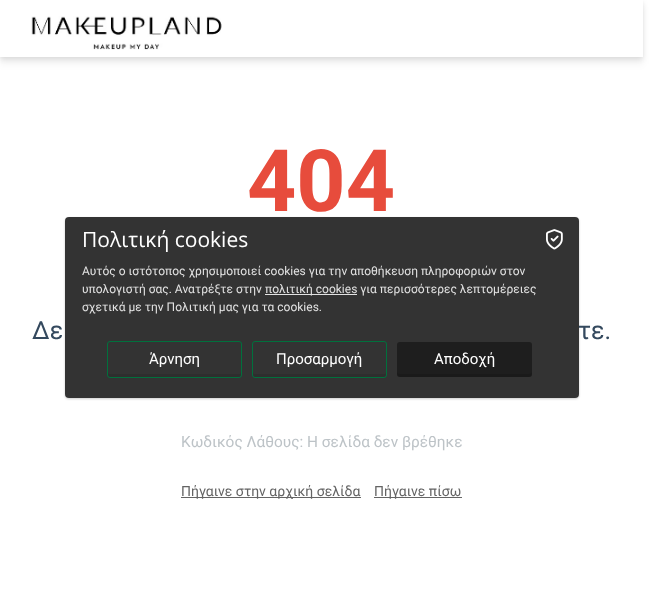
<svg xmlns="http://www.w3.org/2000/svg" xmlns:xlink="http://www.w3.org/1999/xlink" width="651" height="614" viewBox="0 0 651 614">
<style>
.cls-1{font:bold 86px Roboto;fill:#e74c3c}
.cls-2{font:25px Roboto;fill:#34495e}
.cls-3{font:15.4px Roboto;fill:#bdc3c7}
.cls-4{font:14px Roboto;fill:#646464}
.cls-5{font:21px Open Sans;fill:#ffffff}
.cls-6{font:12px Roboto;fill:#e2e2e2}
.cls-7{font:15px Roboto;fill:#ffffff}
</style>
<defs>
<clipPath id="clip1"><path d="M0 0H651V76H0ZM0 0H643V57H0Z" clip-rule="evenodd"/></clipPath>
<clipPath id="clip2"><path d="M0 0H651V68H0ZM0 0H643V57H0Z" clip-rule="evenodd"/></clipPath>
<clipPath id="clip3"><path d="M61 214H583V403H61ZM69 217H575C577 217 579 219 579 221V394C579 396 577 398 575 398H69C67 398 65 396 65 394V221C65 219 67 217 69 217Z" clip-rule="evenodd"/></clipPath>
</defs>
<rect width="100%" height="100%" fill="#ffffff"/>
<g clip-path="url(#clip1)">
<rect fill="#000000" fill-opacity="0.05" filter="blur(3.5px)" x="0" y="7" width="643" height="57"/>
</g>
<g clip-path="url(#clip2)">
<rect fill="#000000" fill-opacity="0.1" filter="blur(2.5px)" x="0" y="2" width="643" height="57"/>
</g>
<image xlink:href="image0.png" x="31" y="16" width="191" height="34"/>
<rect fill="#646464" x="181" y="497" width="180" height="1"/>
<rect fill="#646464" x="374" y="497" width="88" height="1"/>
<g clip-path="url(#clip3)">
<rect fill="#000000" fill-opacity="0.2" filter="blur(1px)" x="65" y="218" width="514" height="181" rx="4"/>
</g>
<rect fill="#000000" fill-opacity="0.8" x="65" y="217" width="514" height="181" rx="4"/>
<rect fill="#e2e2e2" x="265" y="294" width="92" height="1"/>
<path fill="#2e2e2e" d="M108 372V375C108 376 109 377 110 377H239C240 377 241 376 241 375V372C241 374 240 374 239 374H110C109 374 108 374 108 372Z"/>
<rect fill="none" stroke="#00713d" x="107.5" y="341.5" width="134" height="36" rx="2.5"/>
<path fill="#2e2e2e" d="M253 372V375C253 376 254 377 255 377H384C385 377 386 376 386 375V372C386 374 385 374 384 374H255C254 374 253 374 253 372Z"/>
<rect fill="none" stroke="#00713d" x="252.5" y="341.5" width="134" height="36" rx="2.5"/>
<rect fill="#1e1e1e" x="397" y="342" width="135" height="35" rx="3"/>
<path fill="#000000" fill-opacity="0.1" d="M397 372V374C397 376 398 377 400 377H529C531 377 532 376 532 374V372C532 373 530 374 529 374H400C398 374 397 373 397 372Z"/>
<image xlink:href="image1.png" x="546" y="229" width="17" height="21"/>
<text class="cls-1" x="247" y="211">404</text>
<text class="cls-2" x="32" y="339">Δε</text>
<text class="cls-2" x="578" y="339">τε.</text>
<text class="cls-3" x="181" y="447">Κωδικός Λάθους: Η σελίδα δεν βρέθηκε</text>
<text class="cls-4" x="181" y="496">Πήγαινε στην αρχική σελίδα</text>
<text class="cls-4" x="374" y="496">Πήγαινε πίσω</text>
<text class="cls-5" x="82" y="247">Πολιτική cookies</text>
<text class="cls-6"><tspan x="82" y="275">Αυτός ο ιστότοπος χρησιμοποιεί cookies για την αποθήκευση πληροφοριών στον</tspan><tspan x="82" y="293">υπολογιστή σας. Ανατρέξτε στην</tspan></text>
<text class="cls-6" x="265" y="293">πολιτική cookies για περισσότερες λεπτομέρειες</text>
<text class="cls-6" x="82" y="311">σχετικά με την Πολιτική μας για τα cookies.</text>
<text class="cls-7" x="149" y="364">Άρνηση</text>
<text class="cls-7" x="276" y="364">Προσαρμογή</text>
<text class="cls-7" x="434" y="364">Αποδοχή</text>
</svg>
